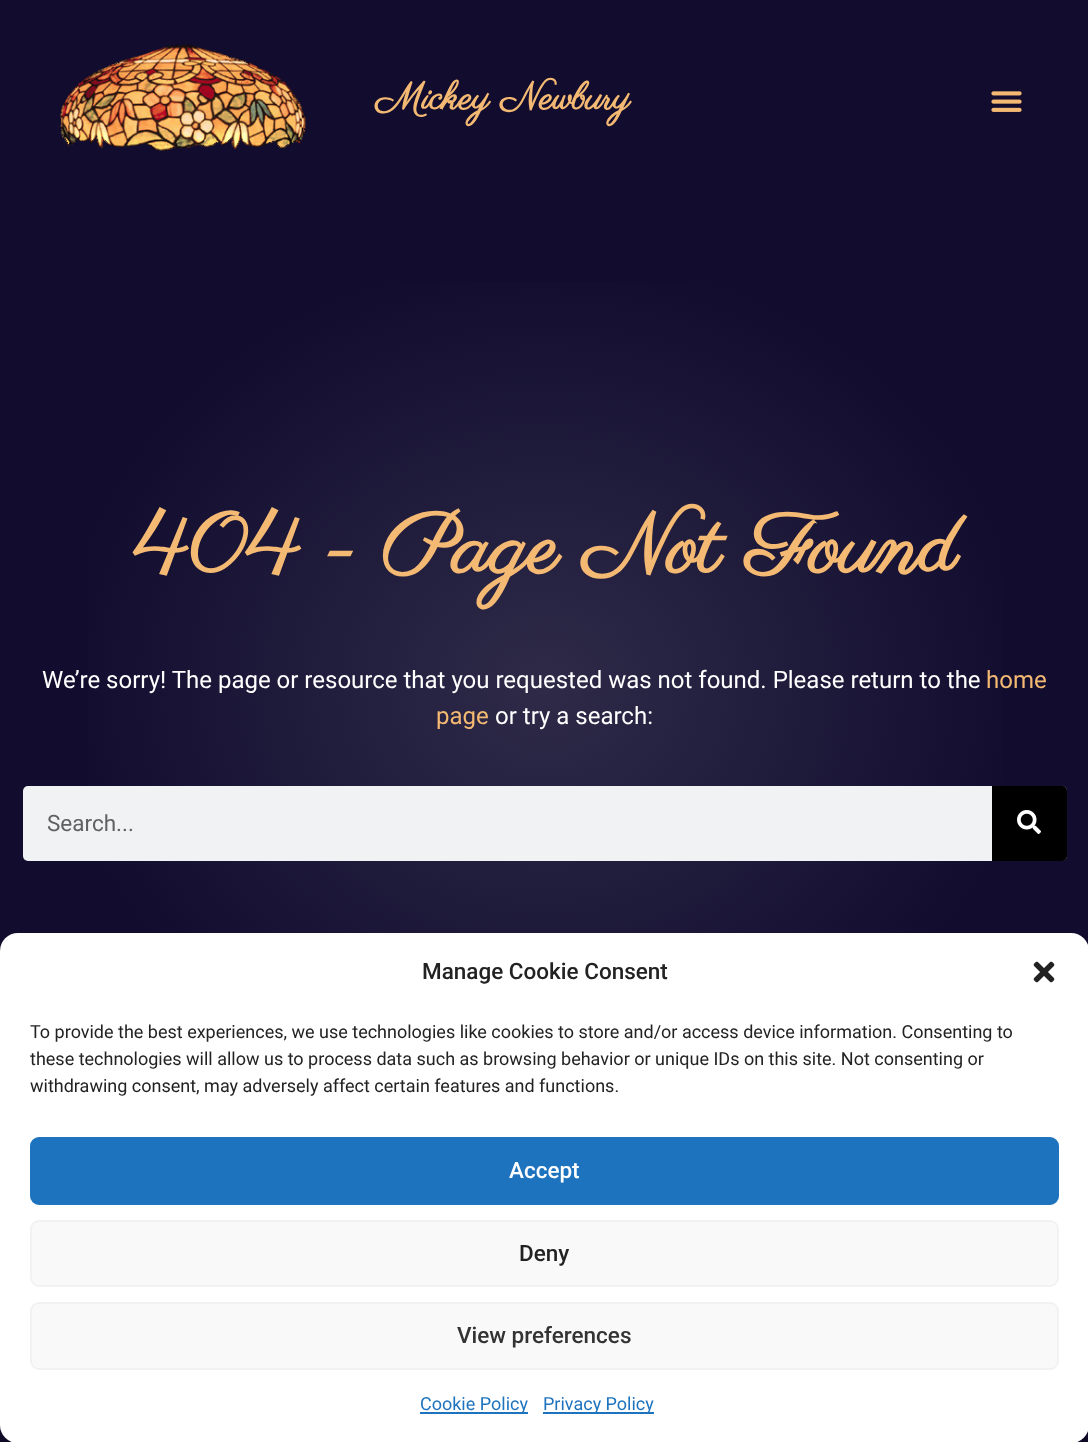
<svg xmlns="http://www.w3.org/2000/svg" xmlns:xlink="http://www.w3.org/1999/xlink" width="1088" height="1442" viewBox="0 0 1088 1442">
<style>
.cls-1{font:bold 38.5px Parisienne;fill:#f4b973}
.cls-2{font:bold 84px Parisienne;fill:#f4b973}
.cls-3{font:24px Roboto;fill:#ffffff}
.cls-4{font:24px Roboto;fill:#f4b973}
.cls-5{font:22.5px Roboto;fill:#606161}
.cls-6{font:500 22.5px Roboto;fill:#222222}
.cls-7{font:18px Roboto;fill:#222222}
.cls-8{font:500 22.5px Roboto;fill:#ffffff}
.cls-9{font:500 22.5px Roboto;fill:#333333}
.cls-10{font:18px Roboto;fill:#1e73be}
</style>
<defs>
<radialGradient id="g1" gradientUnits="userSpaceOnUse" cx="0" cy="0" r="1" gradientTransform="matrix(770 0 0 683 545 686)"><stop offset="0" stop-color="#2e2a48"/><stop offset="0.63" stop-color="#120d2f"/></radialGradient>
</defs>
<rect width="100%" height="100%" fill="#120d2e"/>
<image xlink:href="image0.png" x="60" y="44" width="246" height="107"/>
<image xlink:href="image1.png" x="60" y="44" width="246" height="107"/>
<image xlink:href="image2.png" x="991" y="91" width="31" height="21"/>
<rect fill="url(#g1)" x="88" y="282" width="914" height="669"/>
<rect fill="#f1f2f3" x="23" y="786" width="1044" height="75" rx="5"/>
<path fill="#000000" d="M992 786H1062C1065 786 1067 788 1067 791V856C1067 859 1065 861 1062 861H992Z"/>
<image xlink:href="image3.png" x="1017" y="810" width="24" height="24"/>
<rect fill="#000000" fill-opacity="0.23" filter="blur(4.5px)" x="0" y="942" width="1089" height="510" rx="18"/>
<rect fill="#ffffff" x="0" y="933" width="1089" height="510" rx="18"/>
<image xlink:href="image4.png" x="1033" y="961" width="22" height="22"/>
<rect fill="#1e73be" stroke="#1e73be" stroke-width="2" x="31" y="1138" width="1027" height="66" rx="8"/>
<rect fill="#f9f9f9" stroke="#f2f2f2" stroke-width="2" x="31" y="1221" width="1027" height="65" rx="8"/>
<rect fill="#f9f9f9" stroke="#f2f2f2" stroke-width="2" x="31" y="1303" width="1027" height="66" rx="8"/>
<rect fill="#1e73be" x="420" y="1412" width="108" height="2"/>
<rect fill="#1e73be" x="543" y="1412" width="111" height="2"/>
<text class="cls-1" x="376" y="109">Mickey Newbury</text>
<text class="cls-2" x="132" y="572">404 - Page Not Found</text>
<text class="cls-3" x="42" y="688">We’re sorry! The page or resource that you requested was not found. Please return to the</text>
<text class="cls-4" x="986" y="688">home</text>
<text class="cls-4" x="436" y="724">page</text>
<text class="cls-3" x="495" y="724">or try a search:</text>
<text class="cls-5" x="47" y="831">Search...</text>
<text class="cls-6" x="422" y="979">Manage Cookie Consent</text>
<text class="cls-7"><tspan x="30" y="1038">To provide the best experiences, we use technologies like cookies to store and/or access device information. Consenting to</tspan><tspan x="30" y="1065">these technologies will allow us to process data such as browsing behavior or unique IDs on this site. Not consenting or</tspan><tspan x="30" y="1092">withdrawing consent, may adversely affect certain features and functions.</tspan></text>
<text class="cls-8" x="509" y="1178">Accept</text>
<text class="cls-6" x="519" y="1261">Deny</text>
<text class="cls-9" x="457" y="1343">View preferences</text>
<text class="cls-10" x="420" y="1410">Cookie Policy</text>
<text class="cls-10" x="543" y="1410">Privacy Policy</text>
</svg>
